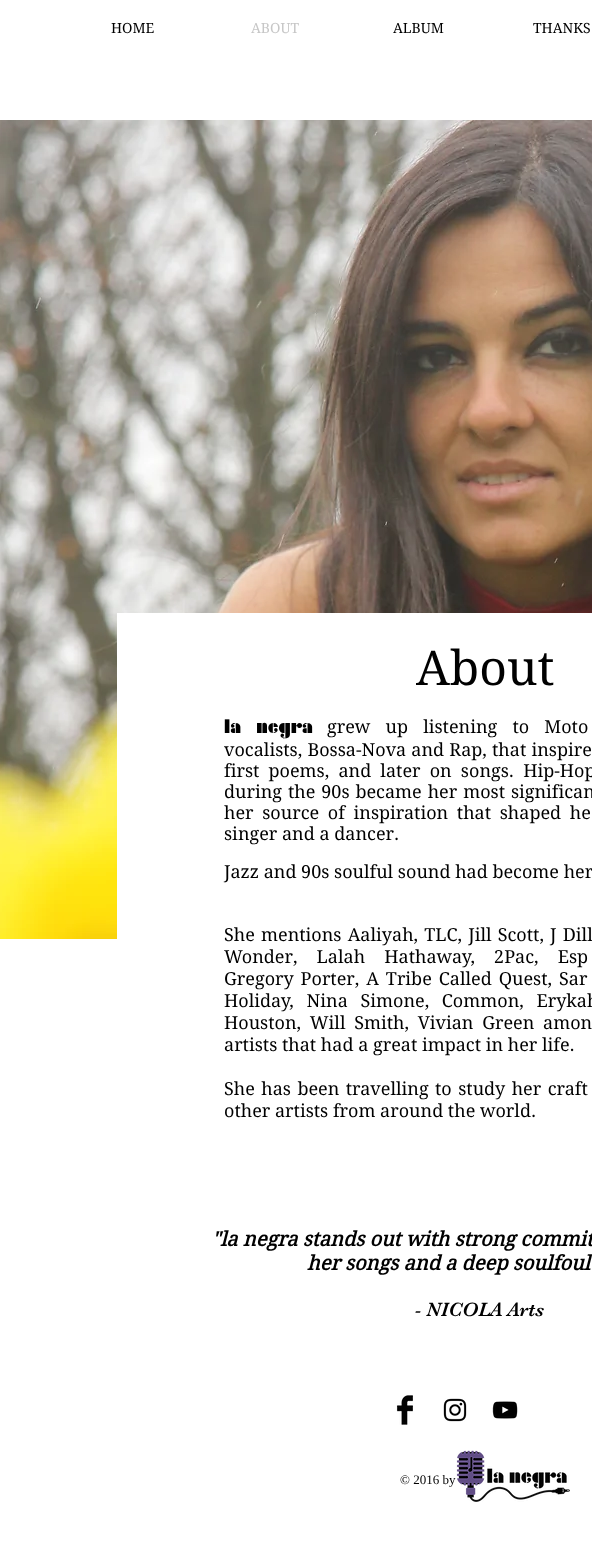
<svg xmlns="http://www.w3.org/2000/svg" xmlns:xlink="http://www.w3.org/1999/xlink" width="592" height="1559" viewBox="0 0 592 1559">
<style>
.cls-1{font:14px 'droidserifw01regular';fill:#000000}
.cls-2{font:14px 'droidserifw01regular';fill:#c7c7c7}
.cls-3{font:48px 'droidserifw01regular';fill:#000000}
.cls-4{font:20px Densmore;fill:#000000}
.cls-5{font:18px 'droidserifw01regular';fill:#000000}
.cls-6{font:italic bold 20px 'droidserifw01regular';fill:#000000}
.cls-7{font:20px 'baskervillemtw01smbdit';fill:#000000}
.cls-8{font:13px Liberation Serif;fill:#000000}
</style>
<rect width="100%" height="100%" fill="#ffffff"/>
<image xlink:href="image0.png" x="0" y="120" width="592" height="819"/>
<rect fill="#ffffff" x="117" y="613" width="475" height="326"/>
<image xlink:href="image1.png" x="396" y="1395" width="17" height="30"/>
<image xlink:href="image2.png" x="443" y="1398" width="24" height="24"/>
<image xlink:href="image3.png" x="492" y="1401" width="26" height="18"/>
<image xlink:href="image4.png" x="456" y="1450" width="114" height="52"/>
<text class="cls-1" x="111" y="33">HOME</text>
<text class="cls-2" x="251" y="33">ABOUT</text>
<text class="cls-1" x="393" y="33">ALBUM</text>
<text class="cls-1" x="533" y="33">THANKS</text>
<text class="cls-3" x="416" y="685">About</text>
<text class="cls-4" x="224" y="733" word-spacing="10.5">la negra</text>
<text class="cls-5" x="327" y="733" word-spacing="10.5">grew up listening to Moto</text>
<text class="cls-5"><tspan x="224" y="756" word-spacing="0.5">vocalists, Bossa-Nova and Rap, that inspire</tspan><tspan x="224" y="777" word-spacing="4.5">first poems, and later on songs. Hip-Hop</tspan><tspan x="224" y="798" word-spacing="1.25">during the 90s became her most significan</tspan><tspan x="224" y="819" word-spacing="4">her source of inspiration that shaped he</tspan><tspan x="224" y="840">singer and a dancer.</tspan></text>
<text class="cls-5" x="224" y="878">Jazz and 90s soulful sound had become her</text>
<text class="cls-5"><tspan x="224" y="941" word-spacing="1.5">She mentions Aaliyah, TLC, Jill Scott, J Dill</tspan><tspan x="224" y="963" word-spacing="14.5">Wonder, Lalah Hathaway, 2Pac, Esp</tspan><tspan x="224" y="985" word-spacing="2.25">Gregory Porter, A Tribe Called Quest, Sar</tspan><tspan x="224" y="1007" word-spacing="8">Holiday, Nina Simone, Common, Erykah</tspan><tspan x="224" y="1029" word-spacing="4">Houston, Will Smith, Vivian Green amon</tspan><tspan x="224" y="1051">artists that had a great impact in her life.</tspan></text>
<text class="cls-5"><tspan x="224" y="1095" word-spacing="1.75">She has been travelling to study her craft</tspan><tspan x="224" y="1117">other artists from around the world.</tspan></text>
<text class="cls-6" x="212" y="1246">"la negra stands out with strong commit</text>
<text class="cls-6" x="307" y="1270">her songs and a deep soulfoul</text>
<text class="cls-7" x="415" y="1316">- NICOLA Arts</text>
<text class="cls-8" x="400" y="1484">© 2016 by</text>
</svg>
